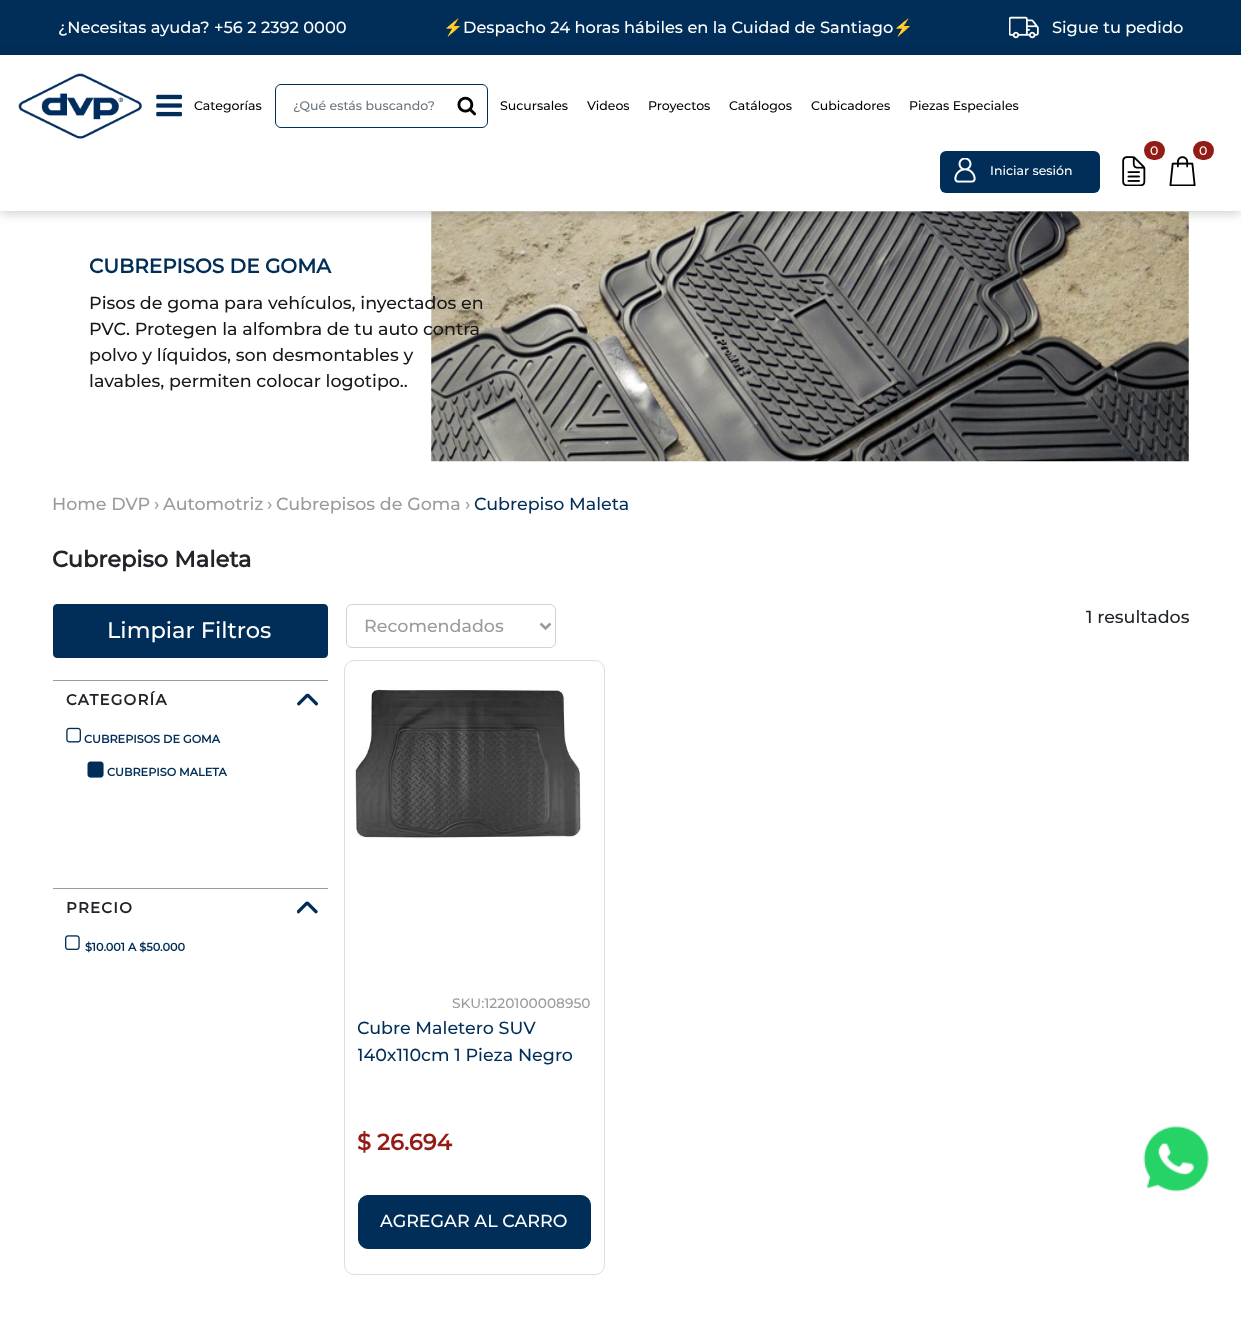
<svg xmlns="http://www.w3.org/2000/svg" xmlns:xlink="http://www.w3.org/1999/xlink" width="1241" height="1336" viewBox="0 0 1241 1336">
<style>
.cls-1{font:100 16.25px Montserrat;fill:#ffffff}
.cls-2{font:16.25px Noto Color Emoji;fill:#ffffff}
.cls-3{font:100 12.5px Montserrat;fill:#000000}
.cls-4{font:100 12.5px Montserrat;fill:#6c757d}
.cls-5{font:100 12.5px Montserrat;fill:#ffffff}
.cls-6{font:bold 20px Montserrat;fill:#002e58}
.cls-7{font:100 17.5px Montserrat;fill:#161718}
.cls-8{font:100 17.5px Montserrat;fill:#9b9b9b}
.cls-9{font:100 17.5px Montserrat;fill:#002e58}
.cls-10{font:bold 22.5px Montserrat;fill:#212529}
.cls-11{font:100 22.5px Montserrat;fill:#ffffff}
.cls-12{font:bold 15px Montserrat;letter-spacing:1.25px;fill:#212529}
.cls-13{font:bold 11.25px Montserrat;fill:#002e58}
.cls-14{font:100 17.5px Montserrat;fill:#212529}
.cls-15{font:100 13.75px Montserrat;fill:#9b9b9b}
.cls-16{font:bold 22.5px Montserrat;fill:#931c17}
.cls-17{font:100 17.5px Montserrat;fill:#ffffff}
</style>
<defs>
<clipPath id="clip1"><path d="M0 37H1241V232H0ZM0 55H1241V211H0Z" clip-rule="evenodd"/></clipPath>
<clipPath id="clip2"><rect x="358" y="1014" width="233" height="56"/></clipPath>
</defs>
<rect width="100%" height="100%" fill="#ffffff"/>
<rect fill="#002e58" x="0" y="0" width="1241" height="55"/>
<image xlink:href="image0.png" x="1009" y="16" width="30" height="23"/>
<image xlink:href="image7.png" x="431" y="211" width="758" height="251"/>
<g clip-path="url(#clip1)">
<rect fill="#000000" fill-opacity="0.2" filter="blur(6px)" x="0" y="56" width="1241" height="157"/>
</g>
<image xlink:href="image1.png" x="18" y="73" width="124" height="66"/>
<image xlink:href="image2.png" x="156" y="94" width="26" height="23"/>
<rect fill="none" stroke="#002e58" x="275.5" y="84.5" width="212" height="43" rx="5.5"/>
<image xlink:href="image3.png" x="457" y="96" width="19" height="20"/>
<image xlink:href="image4.png" x="1122" y="156" width="24" height="30"/>
<rect fill="#931c17" x="1144" y="141" width="21" height="19" rx="9.5"/>
<image xlink:href="image5.png" x="1169" y="156" width="27" height="30"/>
<rect fill="#931c17" x="1193" y="141" width="21" height="19" rx="9.5"/>
<rect fill="#002e58" x="940" y="151" width="160" height="42" rx="6"/>
<image xlink:href="image6.png" x="954" y="158" width="22" height="25"/>
<rect fill="#002e58" stroke="#002e58" x="53.5" y="604.5" width="274" height="53" rx="3.5"/>
<rect fill="#9b9b9b" x="53" y="680" width="275" height="1"/>
<image xlink:href="image8.png" x="297" y="693" width="22" height="13"/>
<image xlink:href="image9.png" x="66" y="727" width="15" height="16"/>
<image xlink:href="image10.png" x="87" y="761" width="17" height="17"/>
<rect fill="#9b9b9b" x="53" y="888" width="275" height="1"/>
<image xlink:href="image11.png" x="297" y="901" width="21" height="13"/>
<image xlink:href="image12.png" x="65" y="935" width="15" height="15"/>
<rect fill="none" stroke="#ced4da" x="346.5" y="604.5" width="209" height="43" rx="5.5"/>
<path fill="none" stroke="#9b9b9b" stroke-width="2.5" d="M540.5 623.5L545.5 628.5L550.5 623.5"/>
<rect fill="none" stroke="#dedede" x="344.5" y="660.5" width="260" height="614" rx="9.5"/>
<image xlink:href="image13.png" x="355" y="688" width="226" height="151"/>
<rect fill="#002e58" stroke="#002e58" x="358.5" y="1195.5" width="232" height="53" rx="9.5"/>
<image xlink:href="image14.png" x="1143" y="1126" width="66" height="66"/>
<text class="cls-1" x="58" y="33">¿Necesitas ayuda? +56 2 2392 0000</text>
<text class="cls-2" x="443" y="33">⚡</text>
<text class="cls-1" x="463" y="33">Despacho 24 horas hábiles en la Cuidad de Santiago</text>
<text class="cls-2" x="893" y="33">⚡</text>
<text class="cls-1" x="1052" y="33">Sigue tu pedido</text>
<text class="cls-3" x="194" y="110">Categorías</text>
<text class="cls-4" x="293" y="110">¿Qué estás buscando?</text>
<text class="cls-3" x="500" y="110">Sucursales</text>
<text class="cls-3" x="587" y="110">Videos</text>
<text class="cls-3" x="648" y="110">Proyectos</text>
<text class="cls-3" x="729" y="110">Catálogos</text>
<text class="cls-3" x="811" y="110">Cubicadores</text>
<text class="cls-3" x="909" y="110">Piezas Especiales</text>
<text class="cls-5" x="1150" y="155">0</text>
<text class="cls-5" x="1199" y="155">0</text>
<text class="cls-5" x="990" y="175">Iniciar sesión</text>
<text class="cls-6" x="89" y="273">CUBREPISOS DE GOMA</text>
<text class="cls-7"><tspan x="89" y="309">Pisos de goma para vehículos, inyectados en</tspan><tspan x="89" y="335">PVC. Protegen la alfombra de tu auto contra</tspan><tspan x="89" y="361">polvo y líquidos, son desmontables y</tspan><tspan x="89" y="387">lavables, permiten colocar logotipo..</tspan></text>
<text class="cls-8" x="52" y="510">Home DVP</text>
<text class="cls-8" x="154" y="510">›</text>
<text class="cls-8" x="163" y="510">Automotriz</text>
<text class="cls-8" x="267" y="510">›</text>
<text class="cls-8" x="276" y="510">Cubrepisos de Goma</text>
<text class="cls-8" x="465" y="510">›</text>
<text class="cls-9" x="474" y="510">Cubrepiso Maleta</text>
<text class="cls-10" x="52" y="567">Cubrepiso Maleta</text>
<text class="cls-11" x="107" y="638">Limpiar Filtros</text>
<text class="cls-12" x="66" y="705">CATEGORÍA</text>
<text class="cls-13" x="84" y="743">CUBREPISOS DE GOMA</text>
<text class="cls-13" x="107" y="776">CUBREPISO MALETA</text>
<text class="cls-12" x="66" y="913">PRECIO</text>
<text class="cls-13" x="85" y="951">$10.001 A $50.000</text>
<text class="cls-14" x="1086" y="623">1 resultados</text>
<text class="cls-8" x="364" y="632">Recomendados</text>
<text class="cls-15" x="452" y="1008">SKU:1220100008950</text>
<g clip-path="url(#clip2)">
<text class="cls-9"><tspan x="357" y="1034">Cubre Maletero SUV</tspan><tspan x="357" y="1061">140x110cm 1 Pieza Negro</tspan></text>
</g>
<text class="cls-16" x="357" y="1150">$ 26.694</text>
<text class="cls-17" x="380" y="1227">AGREGAR AL CARRO</text>
</svg>
